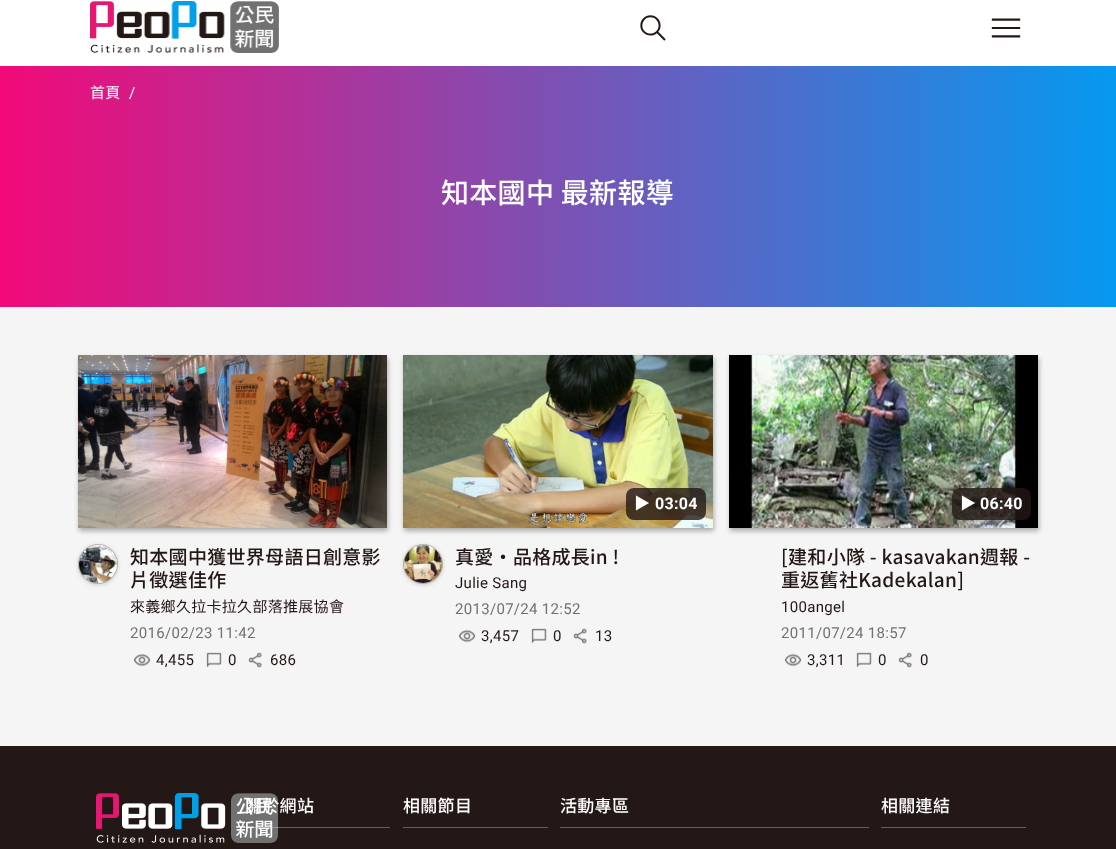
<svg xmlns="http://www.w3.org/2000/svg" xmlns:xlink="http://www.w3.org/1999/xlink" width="1116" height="849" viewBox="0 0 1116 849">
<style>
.cls-1{font:15px Noto Sans TC;letter-spacing:0.3px;fill:#ffffff}
.cls-2{font:15px Roboto;letter-spacing:0.3px;fill:#ffffff}
.cls-3{font:500 28px Noto Sans TC;letter-spacing:0.3px;fill:#ffffff}
.cls-4{font:500 19px Noto Sans TC;letter-spacing:0.3px;fill:#231815}
.cls-5{font:15px Noto Sans TC;letter-spacing:0.3px;fill:#231815}
.cls-6{font:15px Roboto;letter-spacing:0.3px;fill:#727171}
.cls-7{font:15px Roboto;letter-spacing:0.3px;fill:#231815}
.cls-8{font:bold 16px Noto Sans TC;letter-spacing:0.3px;fill:#ffffff}
.cls-9{font:bold 16px Roboto;letter-spacing:0.3px;fill:#ffffff}
.cls-10{font:500 17px Noto Sans TC;letter-spacing:0.3px;fill:#ffffff}
</style>
<defs>
<linearGradient id="g1" gradientUnits="userSpaceOnUse" x1="1116" y1="186" x2="0" y2="187"><stop offset="0" stop-color="#0599f0"/><stop offset="1" stop-color="#f20a78"/></linearGradient>
</defs>
<rect width="100%" height="100%" fill="#f5f5f5"/>
<rect fill="#ffffff" x="0" y="0" width="1116" height="66"/>
<image xlink:href="image0.png" x="90" y="1" width="189" height="52"/>
<image xlink:href="image1.png" x="640" y="15" width="26" height="26"/>
<image xlink:href="image2.png" x="991" y="18" width="30" height="20"/>
<rect fill="url(#g1)" x="0" y="66" width="1116" height="241"/>
<rect fill="#000000" fill-opacity="0.3" filter="blur(2.5px)" x="79" y="358" width="309" height="173"/>
<image xlink:href="image3.png" x="78" y="355" width="309" height="173"/>
<rect fill="#0c0c0d" fill-opacity="0.1" filter="blur(2px)" x="78" y="545" width="40" height="40" rx="20"/>
<rect fill="#0c0c0d" fill-opacity="0.05" filter="blur(2px)" x="78" y="545" width="40" height="40" rx="20"/>
<circle fill="none" stroke="#231815" stroke-opacity="0.25" cx="98" cy="564" r="19.5"/>
<image xlink:href="image4.png" x="79" y="545" width="38" height="38"/>
<image xlink:href="image5.png" x="133" y="653" width="18" height="14"/>
<image xlink:href="image6.png" x="206" y="652" width="16" height="16"/>
<image xlink:href="image7.png" x="248" y="652" width="14" height="16"/>
<rect fill="#000000" fill-opacity="0.3" filter="blur(2.5px)" x="404" y="358" width="310" height="173"/>
<image xlink:href="image8.png" x="403" y="355" width="310" height="173"/>
<rect fill="#231815" fill-opacity="0.8" x="626" y="488" width="80" height="32" rx="8"/>
<rect fill="#0c0c0d" fill-opacity="0.1" filter="blur(2px)" x="403" y="545" width="40" height="40" rx="20"/>
<rect fill="#0c0c0d" fill-opacity="0.05" filter="blur(2px)" x="403" y="545" width="40" height="40" rx="20"/>
<circle fill="none" stroke="#231815" stroke-opacity="0.25" cx="423" cy="564" r="19.5"/>
<image xlink:href="image9.png" x="404" y="545" width="38" height="38"/>
<image xlink:href="image5.png" x="458" y="629" width="18" height="14"/>
<image xlink:href="image6.png" x="531" y="628" width="16" height="16"/>
<image xlink:href="image10.png" x="573" y="628" width="14" height="16"/>
<rect fill="#000000" fill-opacity="0.3" filter="blur(2.5px)" x="730" y="358" width="309" height="173"/>
<image xlink:href="image11.png" x="729" y="355" width="309" height="173"/>
<rect fill="#231815" fill-opacity="0.8" x="952" y="488" width="79" height="32" rx="8"/>
<image xlink:href="image5.png" x="784" y="653" width="18" height="14"/>
<image xlink:href="image6.png" x="856" y="652" width="16" height="16"/>
<image xlink:href="image10.png" x="898" y="652" width="14" height="16"/>
<rect fill="#231815" x="0" y="746" width="1116" height="103"/>
<image xlink:href="image12.png" x="96" y="793" width="182" height="50"/>
<rect fill="#ffffff" fill-opacity="0.3" x="245" y="827" width="145" height="1"/>
<rect fill="#655d5b" x="403" y="827" width="145" height="1"/>
<rect fill="#655d5b" x="560" y="827" width="309" height="1"/>
<rect fill="#655d5b" x="881" y="827" width="145" height="1"/>
<text class="cls-1" x="90" y="98">首頁</text>
<text class="cls-2" x="129" y="98">/</text>
<text class="cls-3" x="441" y="203">知本國中 最新報導</text>
<text class="cls-4"><tspan x="130" y="564">知本國中獲世界母語日創意影</tspan><tspan x="130" y="587">片徵選佳作</tspan></text>
<text class="cls-5" x="130" y="612">來義鄉久拉卡拉久部落推展協會</text>
<text class="cls-6" x="130" y="638">2016/02/23 11:42</text>
<text class="cls-7" x="156" y="665">4,455</text>
<text class="cls-7" x="228" y="665">0</text>
<text class="cls-7" x="270" y="665">686</text>
<text class="cls-8" x="634" y="509">▶︎</text>
<text class="cls-9" x="655" y="509">03:04</text>
<text class="cls-4" x="455" y="564">真愛‧品格成長in !</text>
<text class="cls-7" x="455" y="588">Julie Sang</text>
<text class="cls-6" x="455" y="614">2013/07/24 12:52</text>
<text class="cls-7" x="481" y="641">3,457</text>
<text class="cls-7" x="553" y="641">0</text>
<text class="cls-7" x="595" y="641">13</text>
<text class="cls-8" x="960" y="509">▶︎</text>
<text class="cls-9" x="980" y="509">06:40</text>
<text class="cls-4"><tspan x="781" y="564">[建和小隊 - kasavakan週報 -</tspan><tspan x="781" y="587">重返舊社Kadekalan]</tspan></text>
<text class="cls-7" x="781" y="612">100angel</text>
<text class="cls-6" x="781" y="638">2011/07/24 18:57</text>
<text class="cls-7" x="807" y="665">3,311</text>
<text class="cls-7" x="878" y="665">0</text>
<text class="cls-7" x="920" y="665">0</text>
<text class="cls-10" x="245" y="812">關於網站</text>
<text class="cls-10" x="403" y="812">相關節目</text>
<text class="cls-10" x="560" y="812">活動專區</text>
<text class="cls-10" x="881" y="812">相關連結</text>
</svg>
